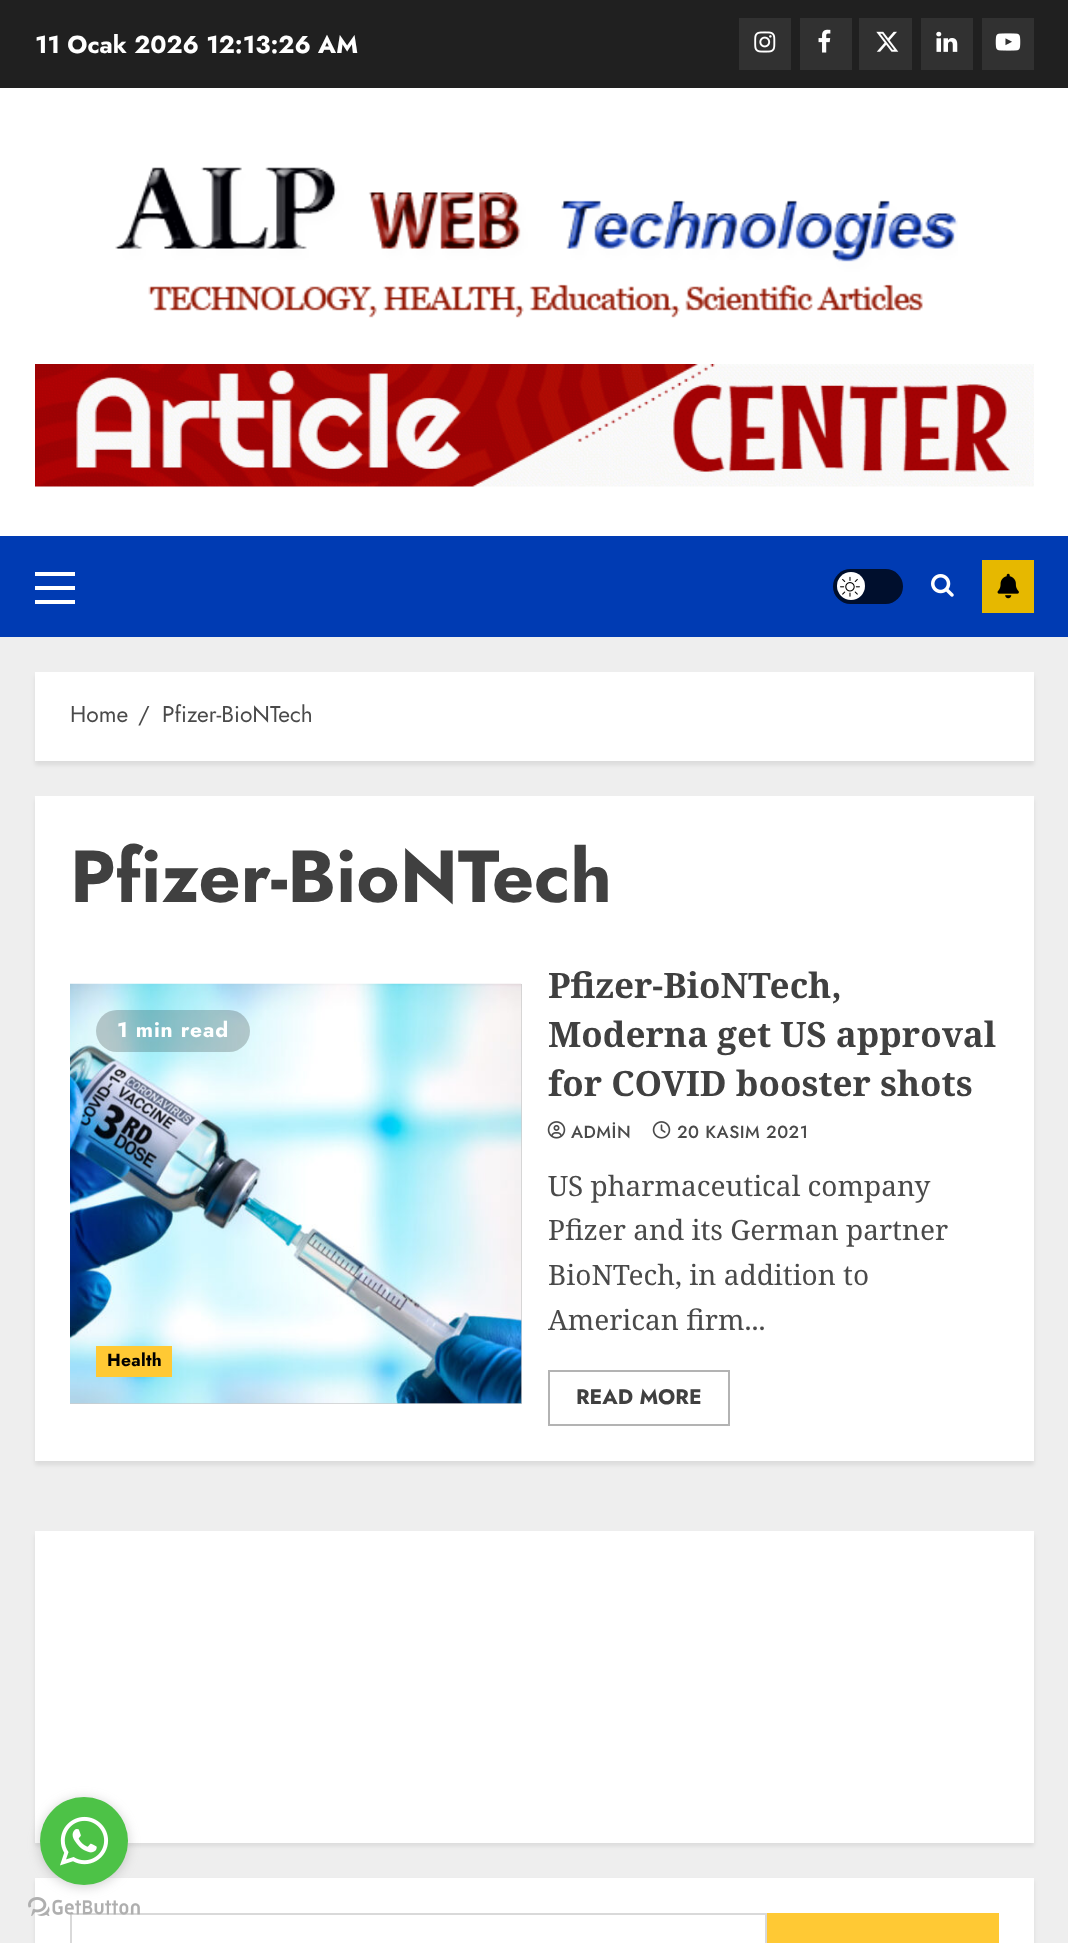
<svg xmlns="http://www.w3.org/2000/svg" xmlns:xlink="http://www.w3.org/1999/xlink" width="1068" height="1943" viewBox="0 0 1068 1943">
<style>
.cls-1{font:bold 24.5px Jost;fill:#ffffff}
.cls-2{font:22.75px Jost;fill:#4a4a4a}
.cls-3{font:bold 73.5px Jost;fill:#404040}
.cls-4{font:bold 21px Jost;letter-spacing:0.9px;fill:#ffffff}
.cls-5{font:bold 17.5px Jost;letter-spacing:0.25px;fill:#000000}
.cls-6{font:bold 35px Noto Serif;fill:#404040}
.cls-7{font:500 17.5px Jost;letter-spacing:0.5px;fill:#4a4a4a}
.cls-8{font:28px Noto Serif;fill:#4a4a4a}
.cls-9{font:bold 21px Jost;fill:#404040}
</style>
<rect width="100%" height="100%" fill="#eeeeee"/>
<rect fill="#202020" x="0" y="0" width="1068" height="88"/>
<rect fill="#313131" x="739" y="18" width="52" height="52"/>
<image xlink:href="image0.png" x="754" y="31" width="22" height="22"/>
<rect fill="#313131" x="800" y="18" width="52" height="52"/>
<image xlink:href="image1.png" x="818" y="29" width="13" height="24"/>
<rect fill="#313131" x="859" y="18" width="53" height="52"/>
<image xlink:href="image2.png" x="876" y="31" width="23" height="21"/>
<rect fill="#313131" x="921" y="18" width="52" height="52"/>
<image xlink:href="image3.png" x="936" y="31" width="22" height="21"/>
<rect fill="#313131" x="982" y="18" width="52" height="52"/>
<image xlink:href="image4.png" x="995" y="33" width="26" height="18"/>
<rect fill="#ffffff" x="0" y="88" width="1068" height="448"/>
<image xlink:href="image5.png" x="115" y="167" width="843" height="151"/>
<image xlink:href="image6.png" x="35" y="364" width="999" height="123"/>
<rect fill="#003bb3" x="0" y="536" width="1068" height="101"/>
<rect fill="#ffffff" x="35" y="586" width="40" height="4"/>
<rect fill="#ffffff" x="35" y="572" width="40" height="4"/>
<rect fill="#ffffff" x="35" y="600" width="40" height="4"/>
<rect fill="#000f2d" x="833" y="569" width="70" height="35" rx="17.5"/>
<circle fill="#ffffff" cx="851" cy="586" r="14"/>
<image xlink:href="image7.png" x="840" y="576" width="20" height="21"/>
<image xlink:href="image8.png" x="931" y="574" width="23" height="23"/>
<rect fill="#e6b800" x="982" y="560" width="52" height="53"/>
<image xlink:href="image9.png" x="997" y="573" width="22" height="26"/>
<rect fill="#000000" fill-opacity="0.08" filter="blur(2px)" x="35" y="676" width="999" height="89"/>
<rect fill="#ffffff" x="35" y="672" width="999" height="89"/>
<rect fill="#000000" fill-opacity="0.08" filter="blur(2px)" x="35" y="800" width="999" height="665"/>
<rect fill="#ffffff" x="35" y="796" width="999" height="665"/>
<rect fill="#cccccc" x="70" y="984" width="452" height="420"/>
<image xlink:href="image10.png" x="70" y="983" width="452" height="421"/>
<rect fill="#000000" fill-opacity="0.2" x="96" y="1010" width="154" height="42" rx="21"/>
<rect fill="#ffc934" x="96" y="1346" width="76" height="31"/>
<image xlink:href="image11.png" x="547" y="1121" width="19" height="18"/>
<image xlink:href="image12.png" x="652" y="1121" width="19" height="18"/>
<rect fill="none" stroke="#b3b3b3" stroke-width="2" x="549" y="1371" width="180" height="54"/>
<rect fill="#000000" fill-opacity="0.08" filter="blur(2px)" x="35" y="1535" width="999" height="311"/>
<rect fill="#ffffff" x="35" y="1531" width="999" height="312"/>
<rect fill="#000000" fill-opacity="0.08" filter="blur(2px)" x="35" y="1881" width="999" height="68"/>
<rect fill="#ffffff" x="35" y="1878" width="999" height="65"/>
<rect fill="none" stroke="#d9d9d9" stroke-width="2" x="71" y="1914" width="695" height="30"/>
<rect fill="#ffc934" x="767" y="1913" width="232" height="30"/>
<image xlink:href="image14.png" x="28" y="1897" width="112" height="19"/>
<rect fill="#888888" fill-opacity="0.4" filter="blur(6px)" x="40" y="1799" width="88" height="88" rx="44"/>
<circle fill="#4dc247" cx="84" cy="1841" r="44"/>
<image xlink:href="image13.png" x="60" y="1816" width="49" height="50"/>
<text class="cls-1" x="35" y="53">11 Ocak 2026 12:13:26 AM</text>
<text class="cls-2" x="70" y="722">Home</text>
<text class="cls-2" x="138" y="722">/</text>
<text class="cls-2" x="162" y="722">Pfizer-BioNTech</text>
<text class="cls-3" x="70" y="902">Pfizer-BioNTech</text>
<text class="cls-4" x="117" y="1037">1 min read</text>
<text class="cls-5" x="107" y="1366">Health</text>
<text class="cls-6"><tspan x="548" y="998">Pfizer-BioNTech,</tspan><tspan x="548" y="1047">Moderna get US approval</tspan><tspan x="548" y="1096">for COVID booster shots</tspan></text>
<text class="cls-7" x="571" y="1138">ADMİN</text>
<text class="cls-7" x="677" y="1138">20 KASIM 2021</text>
<text class="cls-8"><tspan x="548" y="1196">US pharmaceutical company</tspan><tspan x="548" y="1240">Pfizer and its German partner</tspan><tspan x="548" y="1285">BioNTech, in addition to</tspan><tspan x="548" y="1330">American firm...</tspan></text>
<text class="cls-9" x="576" y="1404">READ MORE</text>
</svg>
